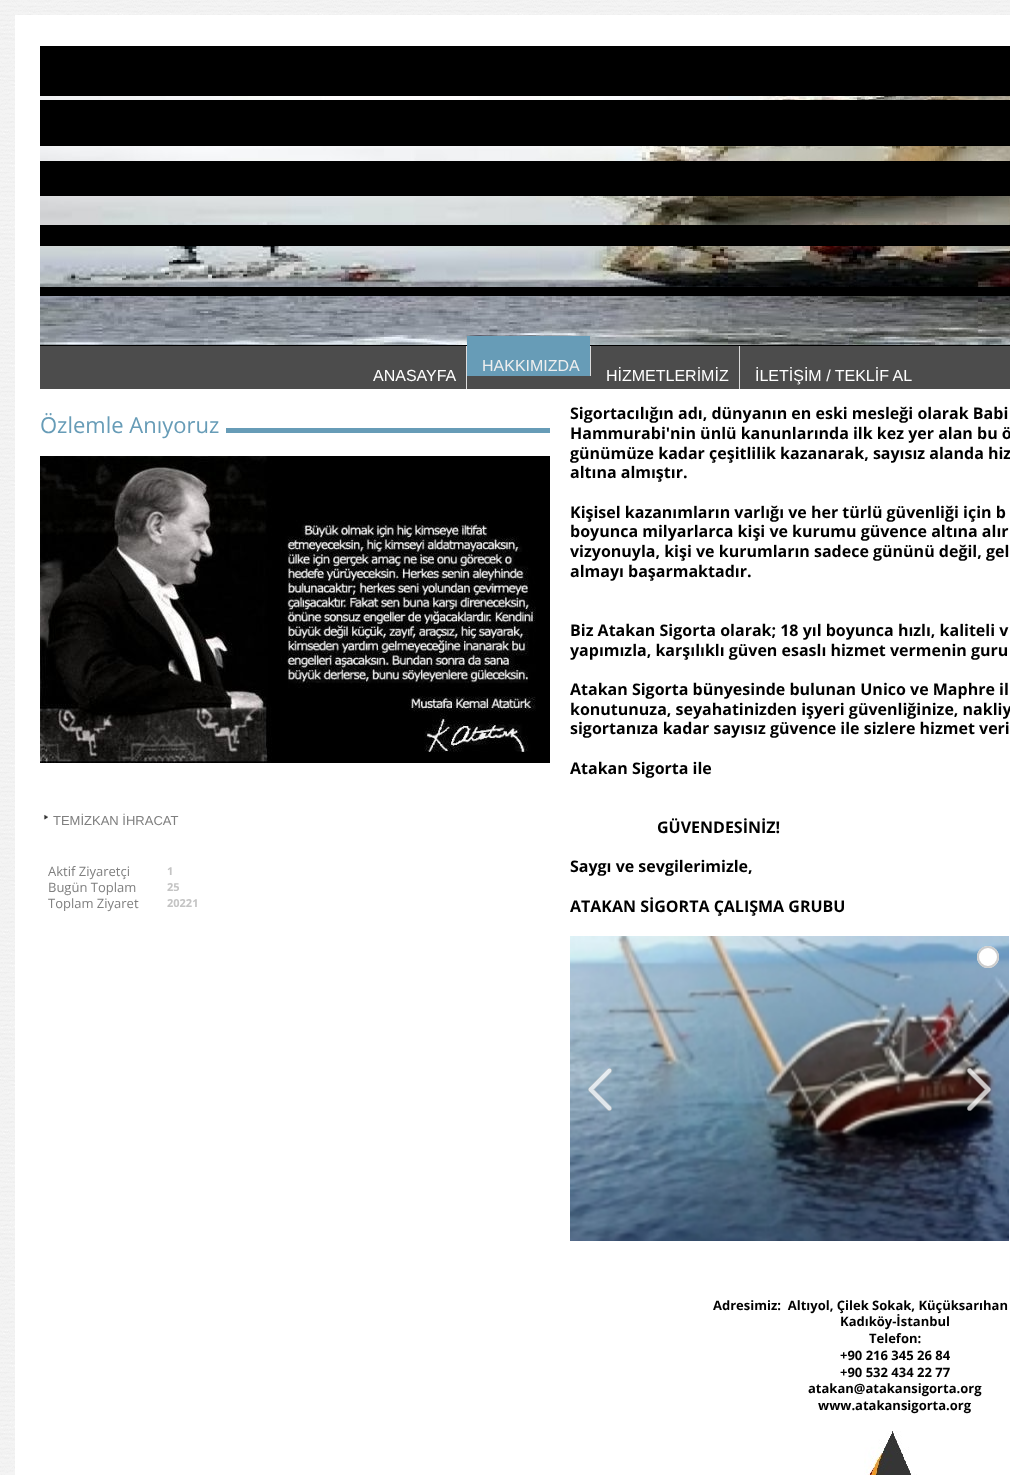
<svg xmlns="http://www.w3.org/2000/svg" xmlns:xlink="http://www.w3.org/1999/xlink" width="1010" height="1475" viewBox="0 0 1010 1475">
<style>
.cls-1{font:16px Liberation Sans;fill:#eeeeee}
.cls-2{font:16px Liberation Sans;fill:#ffffff}
.cls-3{font:22px Open Sans;fill:#679cb7}
.cls-4{font:13px Liberation Sans;fill:#7f7f7f}
.cls-5{font:13px Open Sans;fill:#7f7f7f}
.cls-6{font:bold 11px Open Sans;fill:#c4c4c4}
.cls-7{font:bold 16px Open Sans;fill:#000000}
.cls-8{font:bold 13px Open Sans;fill:#000000}
</style>
<defs>
<clipPath id="clip1"><rect x="977" y="946" width="11" height="22"/></clipPath>
<clipPath id="clip2"><rect x="988" y="946" width="11" height="22"/></clipPath>
</defs>
<rect width="100%" height="100%" fill="#ffffff"/>
<image xlink:href="image0.png" x="0" y="0" width="1010" height="1475"/>
<rect fill="#ffffff" x="15" y="15" width="995" height="1460"/>
<rect fill="#000000" x="40" y="46" width="970" height="300"/>
<image xlink:href="image1.png" x="40" y="96" width="970" height="4"/>
<image xlink:href="image2.png" x="40" y="146" width="970" height="15"/>
<image xlink:href="image3.png" x="40" y="196" width="970" height="29"/>
<image xlink:href="image4.png" x="40" y="246" width="970" height="41"/>
<image xlink:href="image5.png" x="40" y="296" width="970" height="49"/>
<rect fill="#4c4c4c" x="40" y="346" width="970" height="43"/>
<rect fill="#dddddd" x="590" y="346" width="1" height="30"/>
<rect fill="#679cb7" x="467" y="336" width="123" height="40"/>
<rect fill="#dddddd" x="466" y="346" width="1" height="43"/>
<rect fill="#dddddd" x="739" y="346" width="1" height="43"/>
<rect fill="#679cb7" x="226" y="428" width="324" height="5"/>
<image xlink:href="image6.png" x="40" y="456" width="510" height="307"/>
<image xlink:href="image7.png" x="43" y="814" width="5" height="6"/>
<image xlink:href="image8.png" x="570" y="936" width="439" height="305"/>
<path fill="#ffffff" d="M988 946V968C982 968 977 963 977 957C977 951 982 946 988 946Z"/>
<g clip-path="url(#clip1)">
<circle fill="none" stroke="#cccccc" stroke-width="2" cx="988" cy="957" r="10"/>
</g>
<path fill="#ffffff" d="M988 946C994 946 999 951 999 957C999 963 994 968 988 968Z"/>
<g clip-path="url(#clip2)">
<circle fill="none" stroke="#cccccc" stroke-width="2" cx="988" cy="957" r="10"/>
</g>
<image xlink:href="image9.png" x="588" y="1068" width="24" height="43"/>
<image xlink:href="image10.png" x="967" y="1068" width="24" height="43"/>
<image xlink:href="image11.png" x="864" y="1431" width="53" height="44"/>
<text class="cls-1" x="482" y="371">HAKKIMIZDA</text>
<text class="cls-2" x="373" y="381">ANASAYFA</text>
<text class="cls-2" x="606" y="381">HİZMETLERİMİZ</text>
<text class="cls-2" x="755" y="381">İLETİŞİM / TEKLİF AL</text>
<text class="cls-3" x="40" y="433">Özlemle Anıyoruz</text>
<text class="cls-4" x="53" y="825">TEMİZKAN İHRACAT</text>
<text class="cls-5" x="48" y="876">Aktif Ziyaretçi</text>
<text class="cls-6" x="167" y="875">1</text>
<text class="cls-5" x="48" y="892">Bugün Toplam</text>
<text class="cls-6" x="167" y="891">25</text>
<text class="cls-5" x="48" y="908">Toplam Ziyaret</text>
<text class="cls-6" x="167" y="907">20221</text>
<text class="cls-7"><tspan x="570" y="419">Sigortacılığın adı, dünyanın en eski mesleği olarak Babi</tspan><tspan x="570" y="439">Hammurabi'nin ünlü kanunlarında ilk kez yer alan bu ö</tspan><tspan x="570" y="459">günümüze kadar çeşitlilik kazanarak, sayısız alanda hiz</tspan><tspan x="570" y="478">altına almıştır.</tspan></text>
<text class="cls-7"><tspan x="570" y="518">Kişisel kazanımların varlığı ve her türlü güvenliği için b</tspan><tspan x="570" y="537">boyunca milyarlarca kişi ve kurumu güvence altına alır</tspan><tspan x="570" y="557">vizyonuyla, kişi ve kurumların sadece gününü değil, gel</tspan><tspan x="570" y="577">almayı başarmaktadır.</tspan></text>
<text class="cls-7"><tspan x="570" y="636">Biz Atakan Sigorta olarak; 18 yıl boyunca hızlı, kaliteli v</tspan><tspan x="570" y="656">yapımızla, karşılıklı güven esaslı hizmet vermenin guru</tspan></text>
<text class="cls-7"><tspan x="570" y="695">Atakan Sigorta bünyesinde bulunan Unico ve Maphre il</tspan><tspan x="570" y="715">konutunuza, seyahatinizden işyeri güvenliğinize, nakliy</tspan><tspan x="570" y="734">sigortanıza kadar sayısız güvence ile sizlere hizmet veri</tspan></text>
<text class="cls-7" x="570" y="774">Atakan Sigorta ile</text>
<text class="cls-7" x="657" y="833">GÜVENDESİNİZ!</text>
<text class="cls-7" x="570" y="872">Saygı ve sevgilerimizle,</text>
<text class="cls-7" x="570" y="912">ATAKAN SİGORTA ÇALIŞMA GRUBU</text>
<text class="cls-8" xml:space="preserve" x="713" y="1310">Adresimiz:  Altıyol, Çilek Sokak, Küçüksarıhan</text>
<text class="cls-8" x="840" y="1326">Kadıköy-İstanbul</text>
<text class="cls-8" x="869" y="1343">Telefon:</text>
<text class="cls-8"><tspan x="840" y="1360">+90 216 345 26 84</tspan><tspan x="840" y="1377">+90 532 434 22 77</tspan></text>
<text class="cls-8" x="808" y="1393">atakan@atakansigorta.org</text>
<text class="cls-8" x="818" y="1410">www.atakansigorta.org</text>
</svg>
